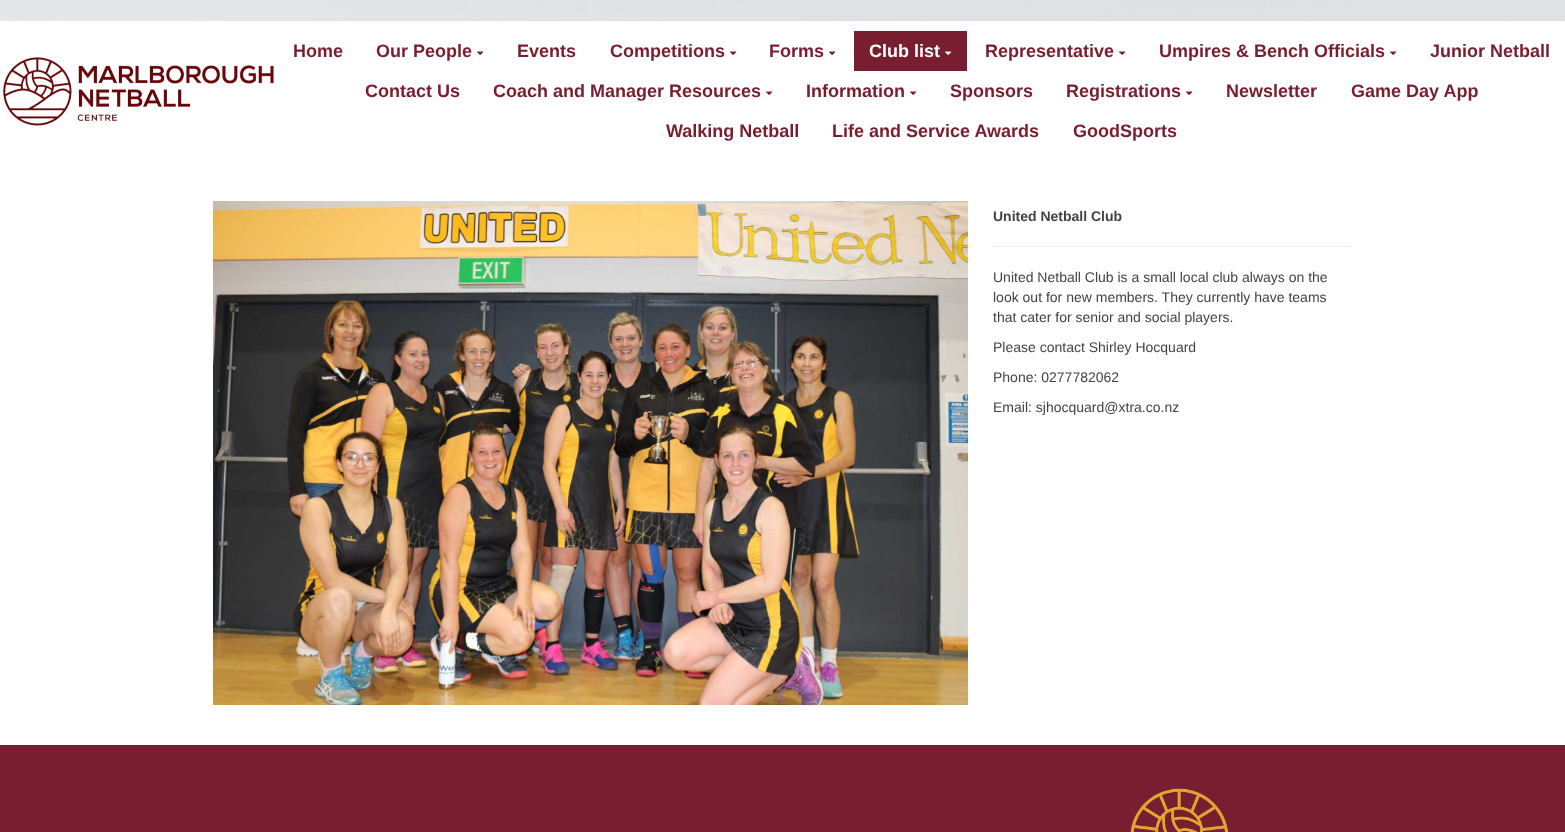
<svg xmlns="http://www.w3.org/2000/svg" xmlns:xlink="http://www.w3.org/1999/xlink" width="1565" height="832" viewBox="0 0 1565 832">
<style>
.cls-1{font:bold 18px Liberation Sans;fill:#791d30}
.cls-2{font:bold 18px Liberation Sans;fill:#ffffff}
.cls-3{font:bold 14px Liberation Sans;fill:#434343}
.cls-4{font:14px Liberation Sans;fill:#434343}
</style>
<rect width="100%" height="100%" fill="#ffffff"/>
<image xlink:href="image0.png" x="0" y="0" width="1565" height="21"/>
<rect fill="#efefef" fill-opacity="0.9" x="0" y="0" width="1565" height="21"/>
<image xlink:href="image1.png" x="3" y="57" width="271" height="69"/>
<image xlink:href="image2.png" x="477" y="51" width="7" height="4"/>
<image xlink:href="image2.png" x="730" y="51" width="7" height="4"/>
<image xlink:href="image2.png" x="829" y="51" width="7" height="4"/>
<rect fill="#791d30" x="854" y="31" width="113" height="40"/>
<image xlink:href="image3.png" x="945" y="51" width="7" height="4"/>
<image xlink:href="image2.png" x="1119" y="51" width="7" height="4"/>
<image xlink:href="image2.png" x="1390" y="51" width="7" height="4"/>
<image xlink:href="image2.png" x="766" y="91" width="7" height="4"/>
<image xlink:href="image2.png" x="910" y="91" width="7" height="4"/>
<image xlink:href="image2.png" x="1186" y="91" width="7" height="4"/>
<image xlink:href="image4.png" x="213" y="201" width="755" height="504"/>
<rect fill="#eeeeee" x="993" y="246" width="358" height="1"/>
<rect fill="#791d30" x="0" y="745" width="1565" height="87"/>
<image xlink:href="image5.png" x="1130" y="788" width="99" height="44"/>
<text class="cls-1" x="293" y="57">Home</text>
<text class="cls-1" x="376" y="57">Our People</text>
<text class="cls-1" x="517" y="57">Events</text>
<text class="cls-1" x="610" y="57">Competitions</text>
<text class="cls-1" x="769" y="57">Forms</text>
<text class="cls-2" x="869" y="57">Club list</text>
<text class="cls-1" x="985" y="57">Representative</text>
<text class="cls-1" x="1159" y="57">Umpires &amp; Bench Officials</text>
<text class="cls-1" x="1430" y="57">Junior Netball</text>
<text class="cls-1" x="365" y="97">Contact Us</text>
<text class="cls-1" x="493" y="97">Coach and Manager Resources</text>
<text class="cls-1" x="806" y="97">Information</text>
<text class="cls-1" x="950" y="97">Sponsors</text>
<text class="cls-1" x="1066" y="97">Registrations</text>
<text class="cls-1" x="1226" y="97">Newsletter</text>
<text class="cls-1" x="1351" y="97">Game Day App</text>
<text class="cls-1" x="666" y="137">Walking Netball</text>
<text class="cls-1" x="832" y="137">Life and Service Awards</text>
<text class="cls-1" x="1073" y="137">GoodSports</text>
<text class="cls-3" x="993" y="221">United Netball Club</text>
<text class="cls-4"><tspan x="993" y="282">United Netball Club is a small local club always on the</tspan><tspan x="993" y="302">look out for new members. They currently have teams</tspan><tspan x="993" y="322">that cater for senior and social players.</tspan></text>
<text class="cls-4" x="993" y="352">Please contact Shirley Hocquard</text>
<text class="cls-4" x="993" y="382">Phone: 0277782062</text>
<text class="cls-4" x="993" y="412">Email: sjhocquard@xtra.co.nz</text>
</svg>
